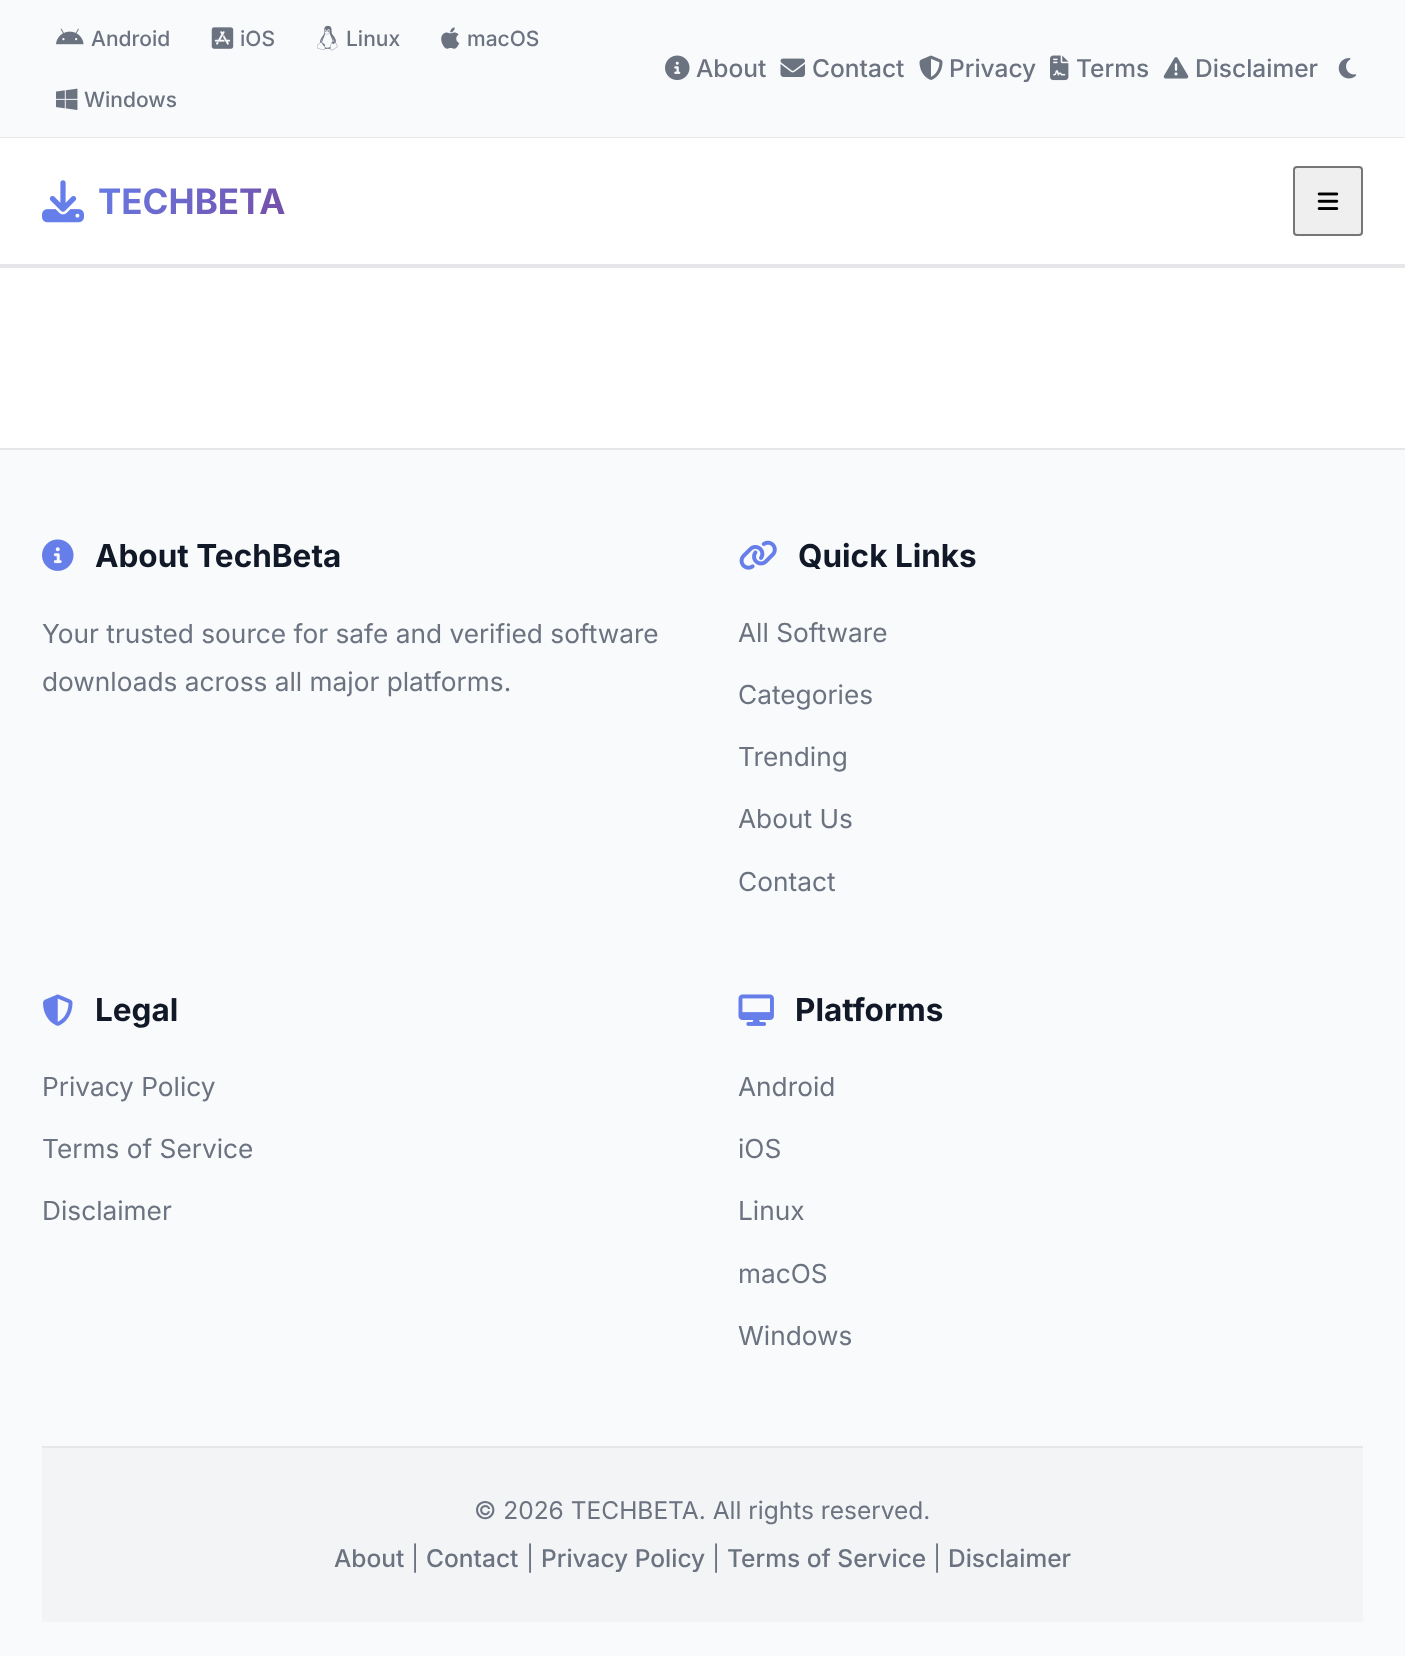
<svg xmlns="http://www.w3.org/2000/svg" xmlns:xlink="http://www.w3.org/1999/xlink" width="1405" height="1656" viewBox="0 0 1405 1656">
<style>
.cls-1{font:500 21px Inter;fill:#6b7280}
.cls-2{font:500 24.5px Inter;fill:#6b7280}
.cls-3{font:bold 35px Inter;fill:url(#g1)}
.cls-4{font:bold 31.5px Inter;fill:#111827}
.cls-5{font:26.25px Inter;fill:#6b7280}
.cls-6{font:24.5px Inter;fill:#6b7280}
</style>
<defs>
<linearGradient id="g1" gradientUnits="userSpaceOnUse" x1="131" y1="141" x2="253" y2="263"><stop offset="0" stop-color="#667eea"/><stop offset="1" stop-color="#764ba2"/></linearGradient>
</defs>
<rect width="100%" height="100%" fill="#ffffff"/>
<rect fill="#e6e6e6" x="0" y="266" width="1405" height="2"/>
<rect fill="#f9fafb" x="0" y="0" width="1405" height="137"/>
<rect fill="#e5e7eb" x="0" y="137" width="1405" height="1"/>
<image xlink:href="image0.png" x="56" y="28" width="28" height="17"/>
<image xlink:href="image1.png" x="211" y="27" width="23" height="22"/>
<image xlink:href="image2.png" x="317" y="25" width="21" height="26"/>
<image xlink:href="image3.png" x="441" y="27" width="19" height="22"/>
<image xlink:href="image4.png" x="56" y="88" width="22" height="22"/>
<image xlink:href="image5.png" x="665" y="55" width="25" height="26"/>
<image xlink:href="image6.png" x="780" y="58" width="25" height="19"/>
<image xlink:href="image7.png" x="919" y="55" width="24" height="25"/>
<image xlink:href="image8.png" x="1050" y="55" width="19" height="26"/>
<image xlink:href="image9.png" x="1163" y="57" width="26" height="22"/>
<image xlink:href="image10.png" x="1338" y="58" width="19" height="21"/>
<rect fill="#e5e7eb" x="0" y="264" width="1405" height="2"/>
<image xlink:href="image11.png" x="42" y="180" width="42" height="43"/>
<rect fill="#efefef" stroke="#767676" stroke-width="2" x="1294" y="167" width="68" height="68" rx="3"/>
<image xlink:href="image12.png" x="1317" y="192" width="22" height="18"/>
<rect fill="#f9fafb" x="0" y="450" width="1405" height="1206"/>
<rect fill="#e5e7eb" x="0" y="448" width="1405" height="2"/>
<image xlink:href="image13.png" x="42" y="539" width="32" height="32"/>
<image xlink:href="image14.png" x="739" y="540" width="38" height="30"/>
<image xlink:href="image15.png" x="43" y="994" width="30" height="32"/>
<image xlink:href="image16.png" x="738" y="994" width="36" height="32"/>
<rect fill="#f3f4f6" x="42" y="1448" width="1321" height="174"/>
<rect fill="#e5e7eb" x="42" y="1446" width="1321" height="2"/>
<text class="cls-1" x="91" y="46">Android</text>
<text class="cls-1" x="240" y="46">iOS</text>
<text class="cls-1" x="346" y="46">Linux</text>
<text class="cls-1" x="467" y="46">macOS</text>
<text class="cls-1" x="84" y="107">Windows</text>
<text class="cls-2" x="696" y="77">About</text>
<text class="cls-2" x="812" y="77">Contact</text>
<text class="cls-2" x="949" y="77">Privacy</text>
<text class="cls-2" x="1076" y="77">Terms</text>
<text class="cls-2" x="1195" y="77">Disclaimer</text>
<text class="cls-3" x="98" y="214">TECHBETA</text>
<text class="cls-4" x="95" y="567">About TechBeta</text>
<text class="cls-5"><tspan x="42" y="643">Your trusted source for safe and verified software</tspan><tspan x="42" y="691">downloads across all major platforms.</tspan></text>
<text class="cls-4" x="798" y="567">Quick Links</text>
<text class="cls-5" x="738" y="642">All Software</text>
<text class="cls-5" x="738" y="704">Categories</text>
<text class="cls-5" x="738" y="766">Trending</text>
<text class="cls-5" x="738" y="828">About Us</text>
<text class="cls-5" x="738" y="891">Contact</text>
<text class="cls-4" x="95" y="1021">Legal</text>
<text class="cls-5" x="42" y="1096">Privacy Policy</text>
<text class="cls-5" x="42" y="1158">Terms of Service</text>
<text class="cls-5" x="42" y="1220">Disclaimer</text>
<text class="cls-4" x="795" y="1021">Platforms</text>
<text class="cls-5" x="738" y="1096">Android</text>
<text class="cls-5" x="738" y="1158">iOS</text>
<text class="cls-5" x="738" y="1220">Linux</text>
<text class="cls-5" x="738" y="1283">macOS</text>
<text class="cls-5" x="738" y="1345">Windows</text>
<text class="cls-6" x="474" y="1519">© 2026 TECHBETA. All rights reserved.</text>
<text class="cls-2" x="334" y="1567">About</text>
<text class="cls-6" x="411" y="1567">|</text>
<text class="cls-2" x="426" y="1567">Contact</text>
<text class="cls-6" x="526" y="1567">|</text>
<text class="cls-2" x="541" y="1567">Privacy Policy</text>
<text class="cls-6" x="712" y="1567">|</text>
<text class="cls-2" x="727" y="1567">Terms of Service</text>
<text class="cls-6" x="933" y="1567">|</text>
<text class="cls-2" x="948" y="1567">Disclaimer</text>
</svg>
